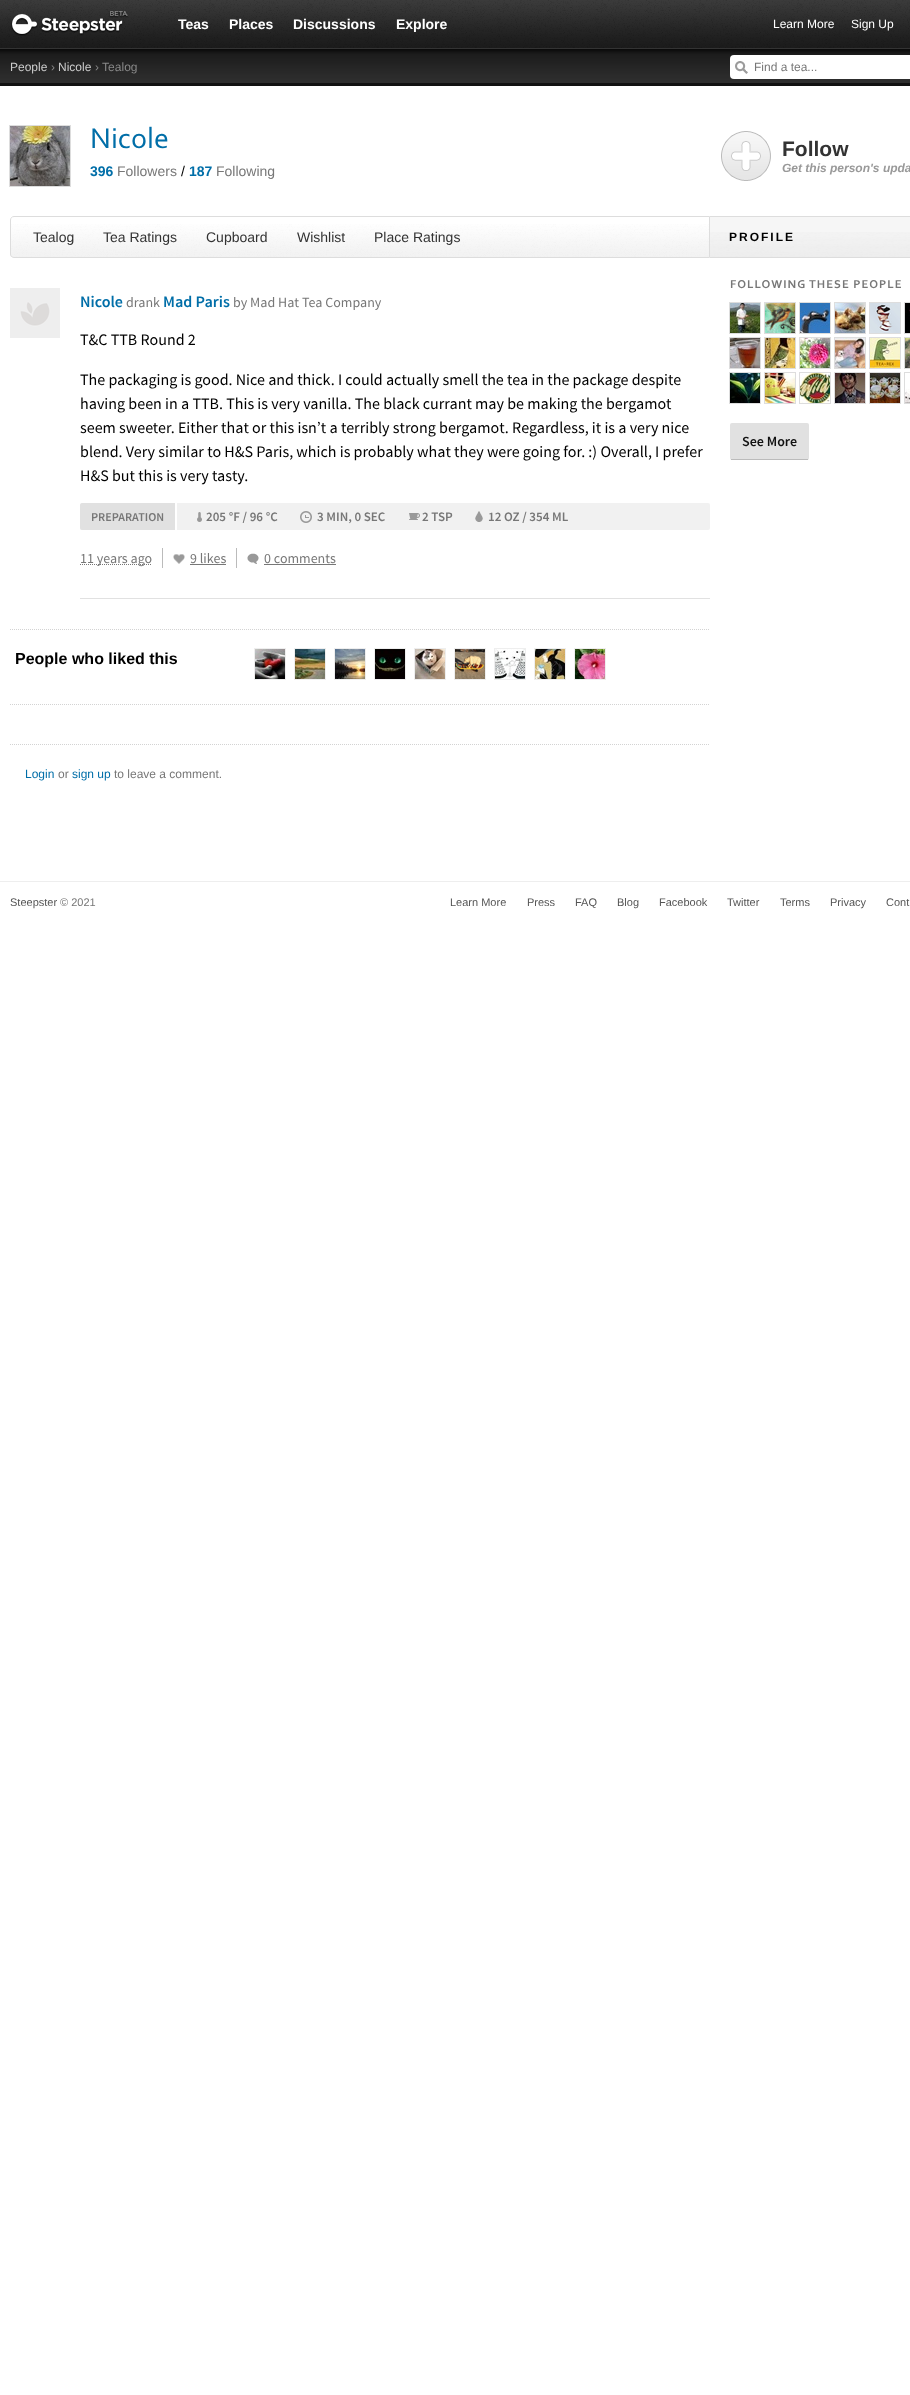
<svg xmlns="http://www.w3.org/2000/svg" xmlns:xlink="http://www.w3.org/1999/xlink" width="910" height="2395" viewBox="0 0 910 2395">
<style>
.cls-1{font:bold 14px Liberation Sans;fill:#ffffff}
.cls-2{font:12px Liberation Sans;fill:#ffffff}
.cls-3{font:12px Liberation Sans;fill:#cccccc}
.cls-4{font:12px Liberation Sans;fill:#888888}
.cls-5{font:12px Liberation Sans;fill:#777777}
.cls-6{font:30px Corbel;fill:#006ea8}
.cls-7{font:bold 14px Liberation Sans;fill:#006ea8}
.cls-8{font:14px Liberation Sans;fill:#777777}
.cls-9{font:14px Liberation Sans;fill:#000000}
.cls-10{font:14px Liberation Sans;fill:#333333}
.cls-11{font:600 16px Source Sans Pro;fill:#006ea8}
.cls-12{font:14px Source Sans Pro;fill:#777777}
.cls-13{font:16px Source Sans Pro;fill:#000000}
.cls-14{font:600 12px Source Sans Pro;fill:#777777}
.cls-15{font:600 13px Source Sans Pro;fill:#777777}
.cls-16{font:bold 16px Liberation Sans;fill:#000000}
.cls-17{font:12px Liberation Sans;fill:#006ea8}
.cls-18{font:bold 21px Liberation Sans;fill:#333333}
.cls-19{font:italic bold 12px Liberation Sans;fill:#999999}
.cls-20{font:bold 12px Liberation Sans;letter-spacing:2px;fill:#000000}
.cls-21{font:bold 12px Corbel;letter-spacing:1px;fill:#777777}
.cls-22{font:600 14px Source Sans Pro;fill:#111111}
.cls-23{font:11px Liberation Sans;fill:#555555}
.cls-24{font:11px Liberation Sans;fill:#777777}
</style>
<rect width="100%" height="100%" fill="#ffffff"/>
<image xlink:href="image0.png" x="0" y="0" width="910" height="48"/>
<image xlink:href="image1.png" x="11" y="11" width="117" height="25"/>
<rect fill="#111111" x="0" y="83" width="910" height="3"/>
<image xlink:href="image2.png" x="0" y="49" width="910" height="34"/>
<rect fill="#333333" x="0" y="48" width="910" height="1"/>
<rect fill="#ffffff" x="730" y="55" width="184" height="24" rx="4"/>
<image xlink:href="image3.png" x="735" y="61" width="13" height="13"/>
<image xlink:href="image4.png" x="10" y="126" width="60" height="60"/>
<rect fill="none" stroke="#dddddd" x="9.5" y="125.5" width="61" height="61"/>
<image xlink:href="image5.png" x="10" y="224" width="699" height="33"/>
<path fill="none" stroke="#dddddd" d="M14 216.5H709.5V257.5H14C12 257.5 10.5 256 10.5 254V220C10.5 218 12 216.5 14 216.5Z"/>
<image xlink:href="image6.png" x="10" y="288" width="50" height="50"/>
<rect fill="#e1e1e1" x="80" y="598" width="630" height="1"/>
<rect fill="#f1f1f1" x="80" y="503" width="630" height="27" rx="2"/>
<path fill="#e1e1e1" d="M82 503H177V530H82C81 530 80 529 80 528V505C80 504 81 503 82 503Z"/>
<rect fill="#ffffff" x="175" y="503" width="2" height="27"/>
<image xlink:href="image7.png" x="197" y="512" width="5" height="10"/>
<image xlink:href="image8.png" x="300" y="511" width="12" height="12"/>
<image xlink:href="image9.png" x="409" y="513" width="11" height="7"/>
<image xlink:href="image10.png" x="475" y="511" width="8" height="11"/>
<rect fill="#bbbbbb" x="162" y="548" width="1" height="20"/>
<path fill="none" stroke="#777777" stroke-dasharray="1 1" d="M80 564.5H152"/>
<image xlink:href="image11.png" x="173" y="554" width="12" height="10"/>
<rect fill="#bbbbbb" x="236" y="548" width="1" height="20"/>
<rect fill="#777777" x="190" y="564" width="36" height="1"/>
<image xlink:href="image12.png" x="247" y="553" width="12" height="11"/>
<rect fill="#777777" x="264" y="564" width="72" height="1"/>
<path fill="none" stroke="#d3d3d3" stroke-dasharray="1 1" d="M10 629.5H710"/>
<image xlink:href="image13.png" x="255" y="649" width="30" height="30"/>
<rect fill="none" stroke="#eeeeee" x="254.5" y="648.5" width="31" height="31"/>
<image xlink:href="image14.png" x="295" y="649" width="30" height="30"/>
<rect fill="none" stroke="#eeeeee" x="294.5" y="648.5" width="31" height="31"/>
<image xlink:href="image15.png" x="335" y="649" width="30" height="30"/>
<rect fill="none" stroke="#eeeeee" x="334.5" y="648.5" width="31" height="31"/>
<image xlink:href="image16.png" x="375" y="649" width="30" height="30"/>
<rect fill="none" stroke="#eeeeee" x="374.5" y="648.5" width="31" height="31"/>
<image xlink:href="image17.png" x="415" y="649" width="30" height="30"/>
<rect fill="none" stroke="#eeeeee" x="414.5" y="648.5" width="31" height="31"/>
<image xlink:href="image18.png" x="455" y="649" width="30" height="30"/>
<rect fill="none" stroke="#eeeeee" x="454.5" y="648.5" width="31" height="31"/>
<image xlink:href="image19.png" x="495" y="649" width="30" height="30"/>
<rect fill="none" stroke="#eeeeee" x="494.5" y="648.5" width="31" height="31"/>
<image xlink:href="image20.png" x="535" y="649" width="30" height="30"/>
<rect fill="none" stroke="#eeeeee" x="534.5" y="648.5" width="31" height="31"/>
<image xlink:href="image21.png" x="575" y="649" width="30" height="30"/>
<rect fill="none" stroke="#eeeeee" x="574.5" y="648.5" width="31" height="31"/>
<path fill="none" stroke="#d3d3d3" stroke-dasharray="1 1" d="M10 704.5H710"/>
<path fill="none" stroke="#d3d3d3" stroke-dasharray="1 1" d="M10 744.5H710"/>
<image xlink:href="image22.png" x="721" y="131" width="50" height="50"/>
<rect fill="#f6f6f6" x="710" y="217" width="200" height="15"/>
<image xlink:href="image23.png" x="710" y="232" width="200" height="25"/>
<path fill="#dddddd" fill-rule="evenodd" d="M710 216H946C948 216 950 218 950 220V254C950 256 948 258 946 258H710ZM710 217H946C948 217 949 218 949 220V254C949 256 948 257 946 257H710Z"/>
<image xlink:href="image24.png" x="730" y="303" width="30" height="30"/>
<rect fill="none" stroke="#dddddd" x="729.5" y="302.5" width="31" height="31"/>
<image xlink:href="image25.png" x="765" y="303" width="30" height="30"/>
<rect fill="none" stroke="#dddddd" x="764.5" y="302.5" width="31" height="31"/>
<image xlink:href="image26.png" x="800" y="303" width="30" height="30"/>
<rect fill="none" stroke="#dddddd" x="799.5" y="302.5" width="31" height="31"/>
<image xlink:href="image27.png" x="835" y="303" width="30" height="30"/>
<rect fill="none" stroke="#dddddd" x="834.5" y="302.5" width="31" height="31"/>
<image xlink:href="image28.png" x="870" y="303" width="30" height="30"/>
<rect fill="none" stroke="#dddddd" x="869.5" y="302.5" width="31" height="31"/>
<image xlink:href="image29.png" x="905" y="303" width="5" height="30"/>
<rect fill="none" stroke="#dddddd" x="904.5" y="302.5" width="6" height="31"/>
<image xlink:href="image30.png" x="730" y="338" width="30" height="30"/>
<rect fill="none" stroke="#dddddd" x="729.5" y="337.5" width="31" height="31"/>
<image xlink:href="image31.png" x="765" y="338" width="30" height="30"/>
<rect fill="none" stroke="#dddddd" x="764.5" y="337.5" width="31" height="31"/>
<image xlink:href="image32.png" x="800" y="338" width="30" height="30"/>
<rect fill="none" stroke="#dddddd" x="799.5" y="337.5" width="31" height="31"/>
<image xlink:href="image33.png" x="835" y="338" width="30" height="30"/>
<rect fill="none" stroke="#dddddd" x="834.5" y="337.5" width="31" height="31"/>
<image xlink:href="image34.png" x="870" y="338" width="30" height="30"/>
<rect fill="none" stroke="#dddddd" x="869.5" y="337.5" width="31" height="31"/>
<image xlink:href="image35.png" x="905" y="338" width="5" height="30"/>
<rect fill="none" stroke="#dddddd" x="904.5" y="337.5" width="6" height="31"/>
<image xlink:href="image36.png" x="730" y="373" width="30" height="30"/>
<rect fill="none" stroke="#dddddd" x="729.5" y="372.5" width="31" height="31"/>
<image xlink:href="image37.png" x="765" y="373" width="30" height="30"/>
<rect fill="none" stroke="#dddddd" x="764.5" y="372.5" width="31" height="31"/>
<image xlink:href="image38.png" x="800" y="373" width="30" height="30"/>
<rect fill="none" stroke="#dddddd" x="799.5" y="372.5" width="31" height="31"/>
<image xlink:href="image39.png" x="835" y="373" width="30" height="30"/>
<rect fill="none" stroke="#dddddd" x="834.5" y="372.5" width="31" height="31"/>
<image xlink:href="image40.png" x="870" y="373" width="30" height="30"/>
<rect fill="none" stroke="#dddddd" x="869.5" y="372.5" width="31" height="31"/>
<image xlink:href="image41.png" x="905" y="389" width="5" height="14"/>
<rect fill="none" stroke="#dddddd" x="904.5" y="372.5" width="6" height="31"/>
<rect fill="#e1e1e1" x="730" y="423" width="79" height="37" rx="2"/>
<rect fill="#bbbbbb" x="731" y="459" width="77" height="1"/>
<rect fill="#eeeeee" x="0" y="881" width="910" height="1"/>
<text class="cls-1" x="178" y="29">Teas</text>
<text class="cls-1" x="229" y="29">Places</text>
<text class="cls-1" x="293" y="29">Discussions</text>
<text class="cls-1" x="396" y="29">Explore</text>
<text class="cls-2" x="773" y="28">Learn More</text>
<text class="cls-2" x="851" y="28">Sign Up</text>
<text class="cls-3" x="10" y="71">People</text>
<text class="cls-4" x="51" y="71">›</text>
<text class="cls-3" x="58" y="71">Nicole</text>
<text class="cls-4" x="95" y="71">› Tealog</text>
<text class="cls-5" x="754" y="71">Find a tea...</text>
<text class="cls-6" x="90" y="148">Nicole</text>
<text class="cls-7" x="90" y="176">396</text>
<text class="cls-8" x="117" y="176">Followers</text>
<text class="cls-9" x="181" y="176">/</text>
<text class="cls-7" x="189" y="176">187</text>
<text class="cls-8" x="216" y="176">Following</text>
<text class="cls-10" x="33" y="242">Tealog</text>
<text class="cls-10" x="103" y="242">Tea Ratings</text>
<text class="cls-10" x="206" y="242">Cupboard</text>
<text class="cls-10" x="297" y="242">Wishlist</text>
<text class="cls-10" x="374" y="242">Place Ratings</text>
<text class="cls-11" x="80" y="307">Nicole</text>
<text class="cls-12" x="126" y="307">drank</text>
<text class="cls-11" x="163" y="307">Mad Paris</text>
<text class="cls-12" x="233" y="307">by Mad Hat Tea Company</text>
<text class="cls-13" x="80" y="345">T&amp;C TTB Round 2</text>
<text class="cls-13"><tspan x="80" y="385">The packaging is good. Nice and thick. I could actually smell the tea in the package despite</tspan><tspan x="80" y="409">having been in a TTB. This is very vanilla. The black currant may be making the bergamot</tspan><tspan x="80" y="433">seem sweeter. Either that or this isn’t a terribly strong bergamot. Regardless, it is a very nice</tspan><tspan x="80" y="457">blend. Very similar to H&amp;S Paris, which is probably what they were going for. :) Overall, I prefer</tspan><tspan x="80" y="481">H&amp;S but this is very tasty.</tspan></text>
<text class="cls-14" x="91" y="521">PREPARATION</text>
<text class="cls-15" x="206" y="521">205 °F / 96 °C</text>
<text class="cls-15" x="317" y="521">3 MIN, 0 SEC</text>
<text class="cls-15" x="422" y="521">2 TSP</text>
<text class="cls-15" x="488" y="521">12 OZ / 354 ML</text>
<text class="cls-12" x="80" y="563">11 years ago</text>
<text class="cls-12" x="190" y="563">9 likes</text>
<text class="cls-12" x="264" y="563">0 comments</text>
<text class="cls-16" x="15" y="664">People who liked this</text>
<text class="cls-17" x="25" y="778">Login</text>
<text class="cls-5" x="58" y="778">or</text>
<text class="cls-17" x="72" y="778">sign up</text>
<text class="cls-5" x="114" y="778">to leave a comment.</text>
<text class="cls-18" x="782" y="156">Follow</text>
<text class="cls-19" x="782" y="172">Get this person's upda</text>
<text class="cls-20" x="729" y="241">PROFILE</text>
<text class="cls-21" x="730" y="288">FOLLOWING THESE PEOPLE</text>
<text class="cls-22" x="742" y="446">See More</text>
<text class="cls-23" x="10" y="906">Steepster</text>
<text class="cls-24" x="60" y="906">© 2021</text>
<text class="cls-23" x="450" y="906">Learn More</text>
<text class="cls-23" x="527" y="906">Press</text>
<text class="cls-23" x="575" y="906">FAQ</text>
<text class="cls-23" x="617" y="906">Blog</text>
<text class="cls-23" x="659" y="906">Facebook</text>
<text class="cls-23" x="727" y="906">Twitter</text>
<text class="cls-23" x="780" y="906">Terms</text>
<text class="cls-23" x="830" y="906">Privacy</text>
<text class="cls-23" x="886" y="906">Cont</text>
</svg>
